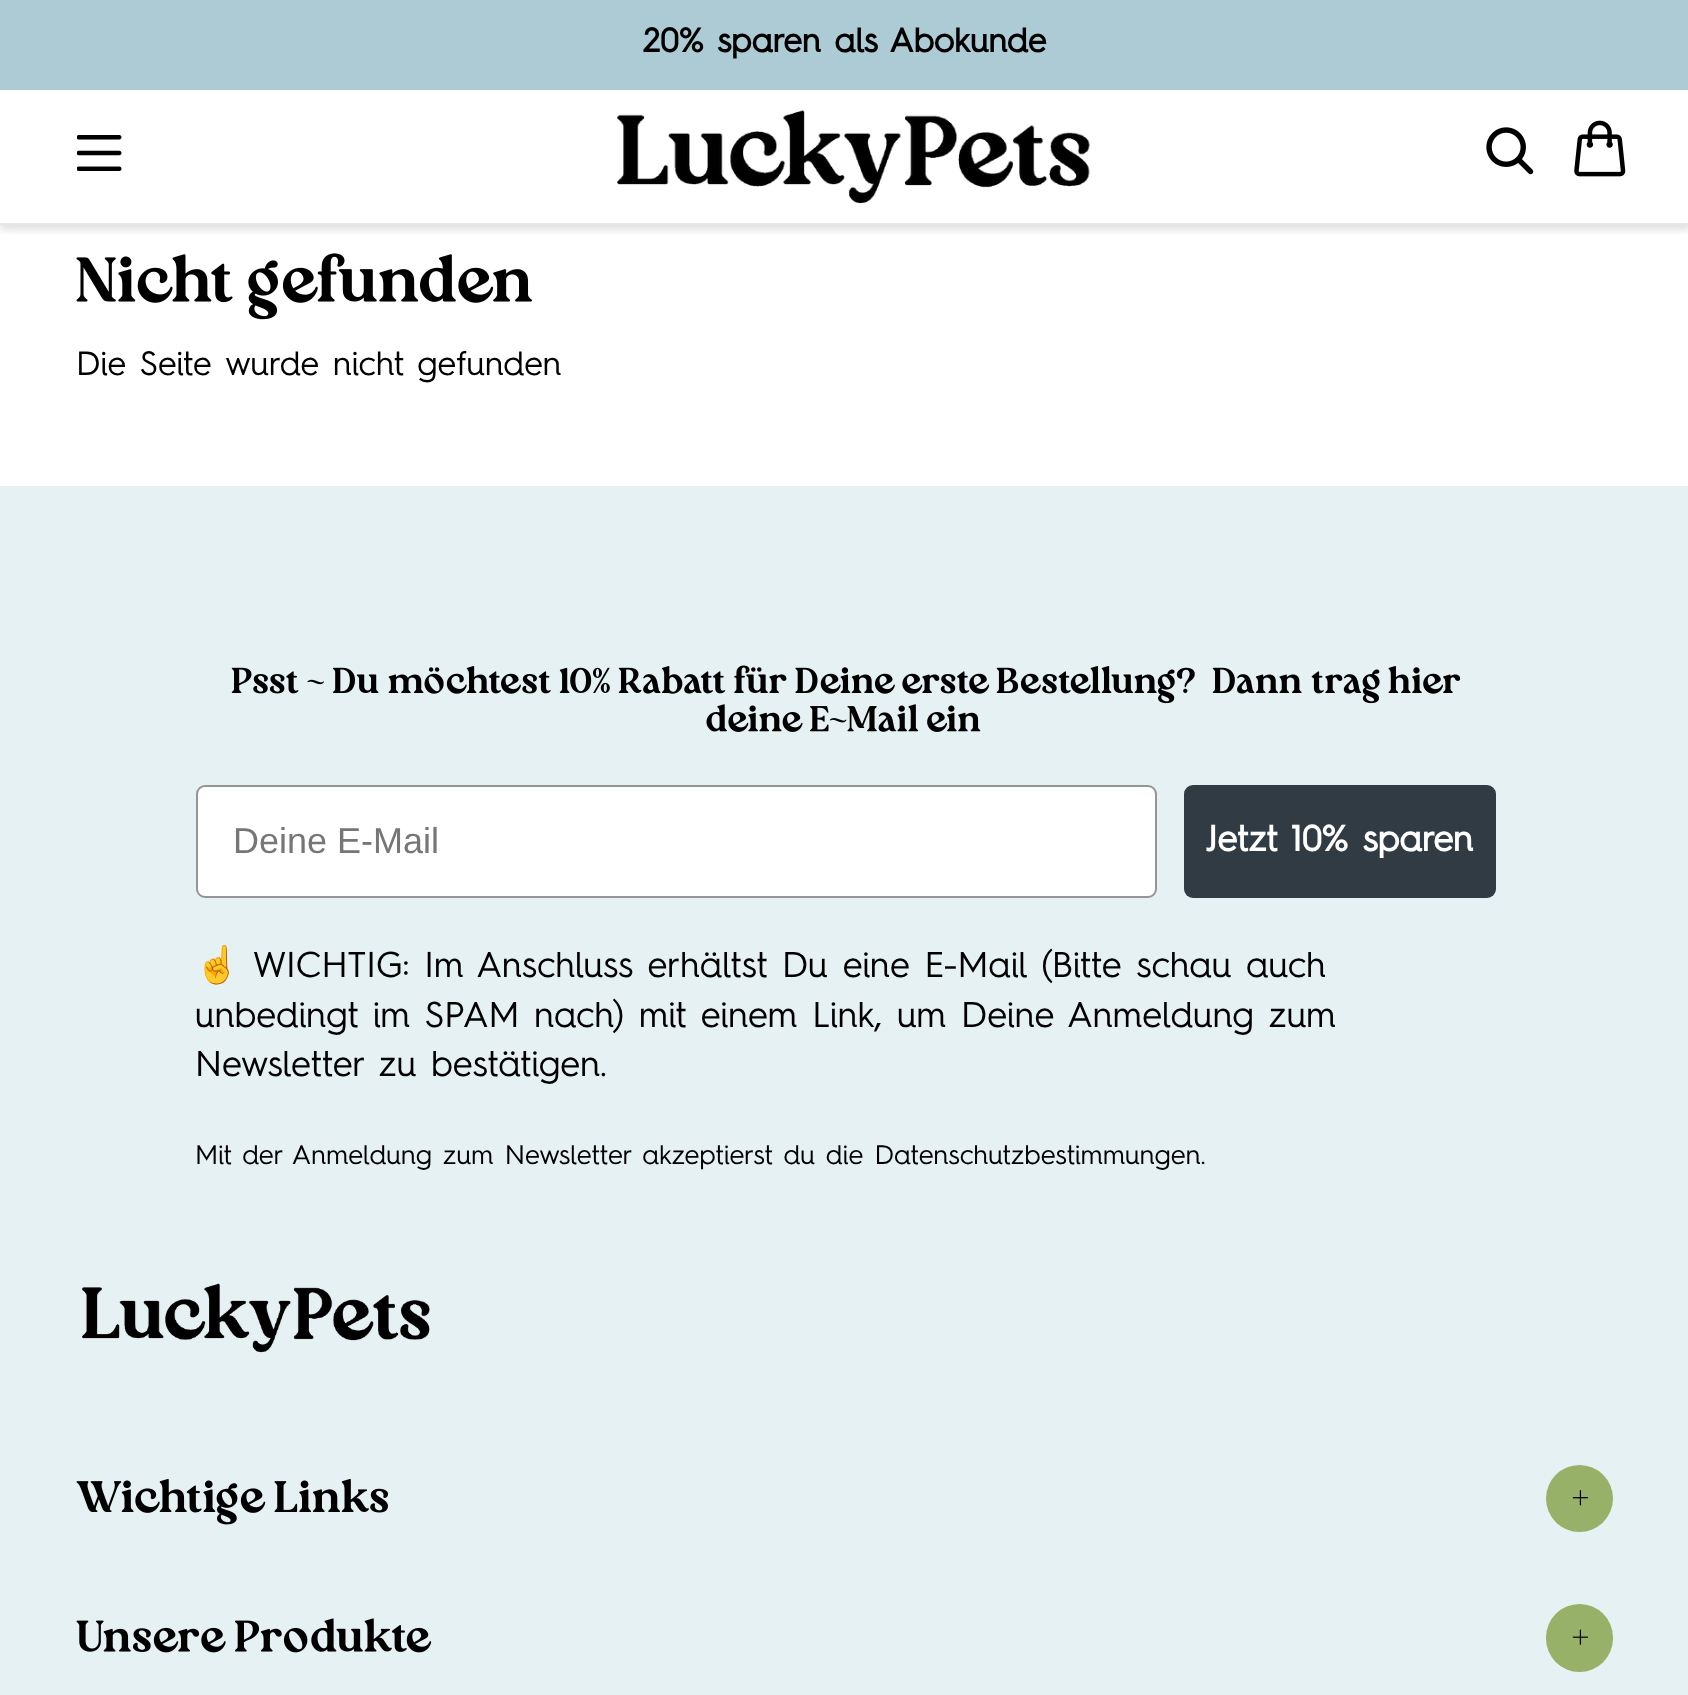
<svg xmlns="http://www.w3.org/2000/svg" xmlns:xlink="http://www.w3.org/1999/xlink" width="1688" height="1695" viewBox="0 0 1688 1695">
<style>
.cls-1{font:bold 33.75px 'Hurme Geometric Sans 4';fill:#000000}
.cls-2{font:33.75px 'Hurme Geometric Sans 4';fill:#000000}
.cls-3{font:36px Liberation Sans;fill:#767676}
.cls-4{font:bold 36px 'Hurme Geometric Sans 4';fill:#ffffff}
.cls-5{font:36px Noto Color Emoji;fill:#000000}
.cls-6{font:36px 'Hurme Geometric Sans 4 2';fill:#000000}
.cls-7{font:27px 'Hurme Geometric Sans 4 2';fill:#000000}
</style>
<defs>
<clipPath id="clip1"><rect x="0" y="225" width="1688" height="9"/></clipPath>
</defs>
<rect width="100%" height="100%" fill="#ffffff"/>
<g clip-path="url(#clip1)">
<rect fill="#000000" fill-opacity="0.12" filter="blur(4.5px)" x="0" y="95" width="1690" height="135"/>
</g>
<rect fill="#adcbd4" x="0" y="0" width="1688" height="90"/>
<rect fill="#e6e6e6" x="0" y="223" width="1688" height="2"/>
<image xlink:href="image0.png" x="77" y="135" width="45" height="36"/>
<image xlink:href="image1.png" x="617" y="110" width="473" height="94"/>
<image xlink:href="image2.png" x="1486" y="127" width="48" height="48"/>
<image xlink:href="image3.png" x="1574" y="120" width="52" height="57"/>
<image xlink:href="image4.png" x="76" y="253" width="456" height="67"/>
<rect fill="#e6f1f4" x="0" y="486" width="1688" height="1209"/>
<image xlink:href="image5.png" x="231" y="665" width="964" height="39"/>
<image xlink:href="image6.png" x="1212" y="666" width="249" height="38"/>
<image xlink:href="image7.png" x="706" y="704" width="97" height="28"/>
<image xlink:href="image8.png" x="810" y="704" width="171" height="28"/>
<rect fill="#ffffff" stroke="#949596" stroke-width="2" x="197" y="786" width="959" height="111" rx="8"/>
<rect fill="#303b43" x="1184" y="785" width="312" height="113" rx="9"/>
<image xlink:href="image9.png" x="82" y="1283" width="348" height="70"/>
<image xlink:href="image10.png" x="76" y="1479" width="313" height="46"/>
<circle fill="#97b168" cx="1579.5" cy="1498.5" r="33.5"/>
<image xlink:href="image11.png" x="1572" y="1490" width="17" height="16"/>
<image xlink:href="image12.png" x="76" y="1618" width="356" height="35"/>
<rect fill="#97b168" x="1546" y="1604" width="67" height="68" rx="33.5"/>
<image xlink:href="image13.png" x="1572" y="1629" width="17" height="16"/>
<text class="cls-1" x="643" y="52">20% sparen als Abokunde</text>
<text class="cls-2" x="76" y="375">Die Seite wurde nicht gefunden</text>
<text class="cls-3" x="233" y="853">Deine E-Mail</text>
<text class="cls-4" x="1206" y="851">Jetzt 10% sparen</text>
<text class="cls-5" x="195" y="977">☝️</text>
<text class="cls-6" x="253" y="977">WICHTIG: Im Anschluss erhältst Du eine E-Mail (Bitte schau auch</text>
<text class="cls-6"><tspan x="195" y="1027">unbedingt im SPAM nach) mit einem Link, um Deine Anmeldung zum</tspan><tspan x="195" y="1076">Newsletter zu bestätigen.</tspan></text>
<text class="cls-7" x="195" y="1164">Mit der Anmeldung zum Newsletter akzeptierst du die Datenschutzbestimmungen.</text>
</svg>
